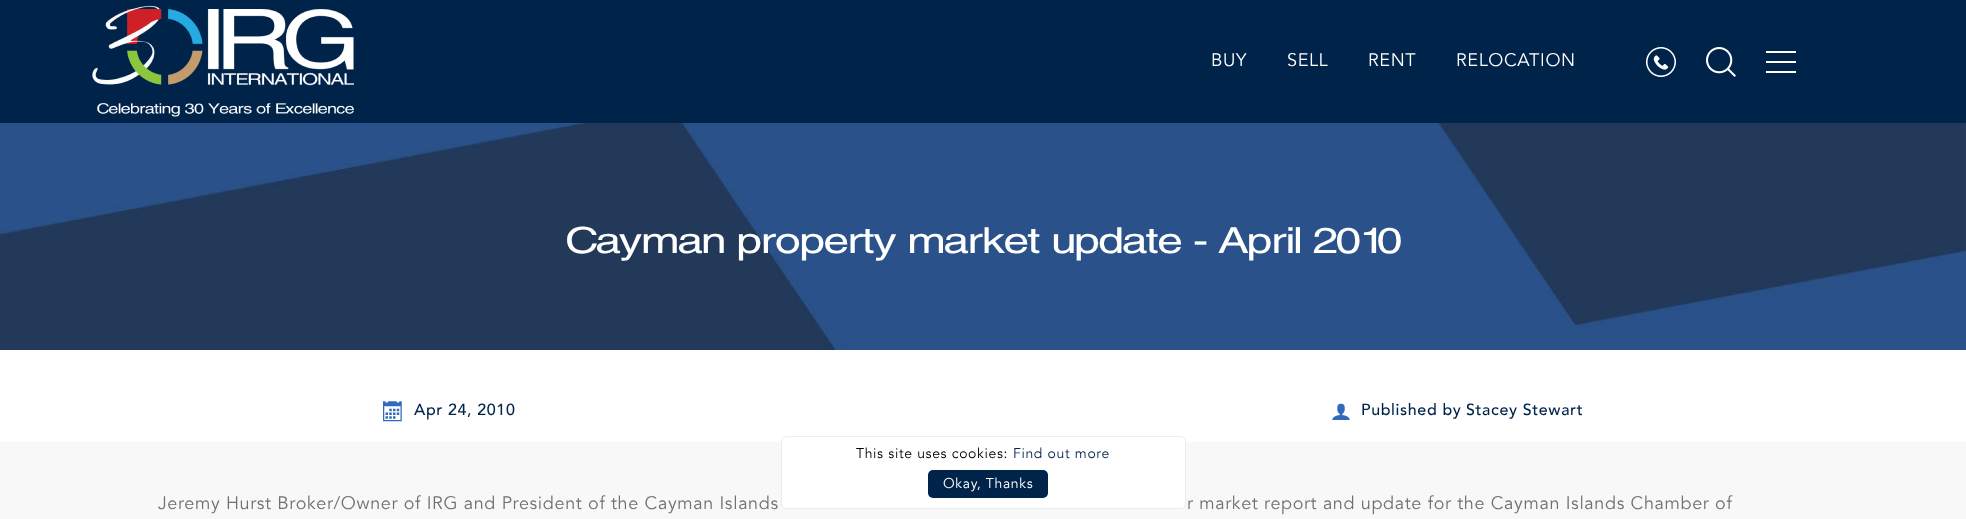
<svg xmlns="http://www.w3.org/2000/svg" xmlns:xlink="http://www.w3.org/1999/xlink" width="1966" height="519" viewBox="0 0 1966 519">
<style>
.cls-1{font:18px Avenir;letter-spacing:0.65px;fill:#ffffff}
.cls-2{font:36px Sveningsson;fill:#ffffff}
.cls-3{font:500 16px Avenir;letter-spacing:0.65px;fill:#00234a}
.cls-4{font:18px Avenir;letter-spacing:0.65px;fill:#707070}
.cls-5{font:14px Avenir;letter-spacing:0.65px;fill:#000000}
.cls-6{font:14px Avenir;letter-spacing:0.65px;fill:#00234a}
.cls-7{font:14px Avenir;letter-spacing:0.65px;fill:#ffffff}
</style>
<rect width="100%" height="100%" fill="#ffffff"/>
<rect fill="#00234a" x="0" y="0" width="1966" height="123"/>
<image xlink:href="image0.png" x="92" y="5" width="262" height="112"/>
<image xlink:href="image1.png" x="1646" y="47" width="30" height="30"/>
<image xlink:href="image2.png" x="1706" y="47" width="30" height="30"/>
<rect fill="#ffffff" x="1766" y="51" width="30" height="2"/>
<rect fill="#ffffff" x="1766" y="61" width="30" height="2"/>
<rect fill="#ffffff" x="1766" y="71" width="30" height="2"/>
<image xlink:href="image3.png" x="0" y="123" width="1966" height="227"/>
<image xlink:href="image4.png" x="383" y="401" width="19" height="21"/>
<image xlink:href="image5.png" x="1332" y="403" width="18" height="17"/>
<rect fill="#f8f8f8" x="0" y="442" width="1966" height="77"/>
<rect fill="#ffffff" fill-opacity="0.9" x="781" y="436" width="405" height="73" rx="5"/>
<rect fill="none" stroke="#464749" stroke-opacity="0.1" x="781.5" y="436.5" width="404" height="72" rx="4.5"/>
<rect fill="#00234a" x="928" y="470" width="120" height="28" rx="5"/>
<text class="cls-1" x="1211" y="66">BUY</text>
<text class="cls-1" x="1287" y="66">SELL</text>
<text class="cls-1" x="1368" y="66">RENT</text>
<text class="cls-1" x="1456" y="66">RELOCATION</text>
<text class="cls-2" x="565" y="253">Cayman property market update - April 2010</text>
<text class="cls-3" x="414" y="415">Apr 24, 2010</text>
<text class="cls-3" x="1361" y="415">Published by</text>
<text class="cls-3" x="1466" y="415">Stacey Stewart</text>
<text class="cls-4" x="158" y="509">Jeremy Hurst Broker/Owner of IRG and President of the Cayman Islands</text>
<text class="cls-4" x="1187" y="509">r market report and update for the Cayman Islands Chamber of</text>
<text class="cls-5" x="856" y="458">This site uses cookies:</text>
<text class="cls-6" x="1013" y="458">Find out more</text>
<text class="cls-7" x="943" y="488">Okay, Thanks</text>
</svg>
